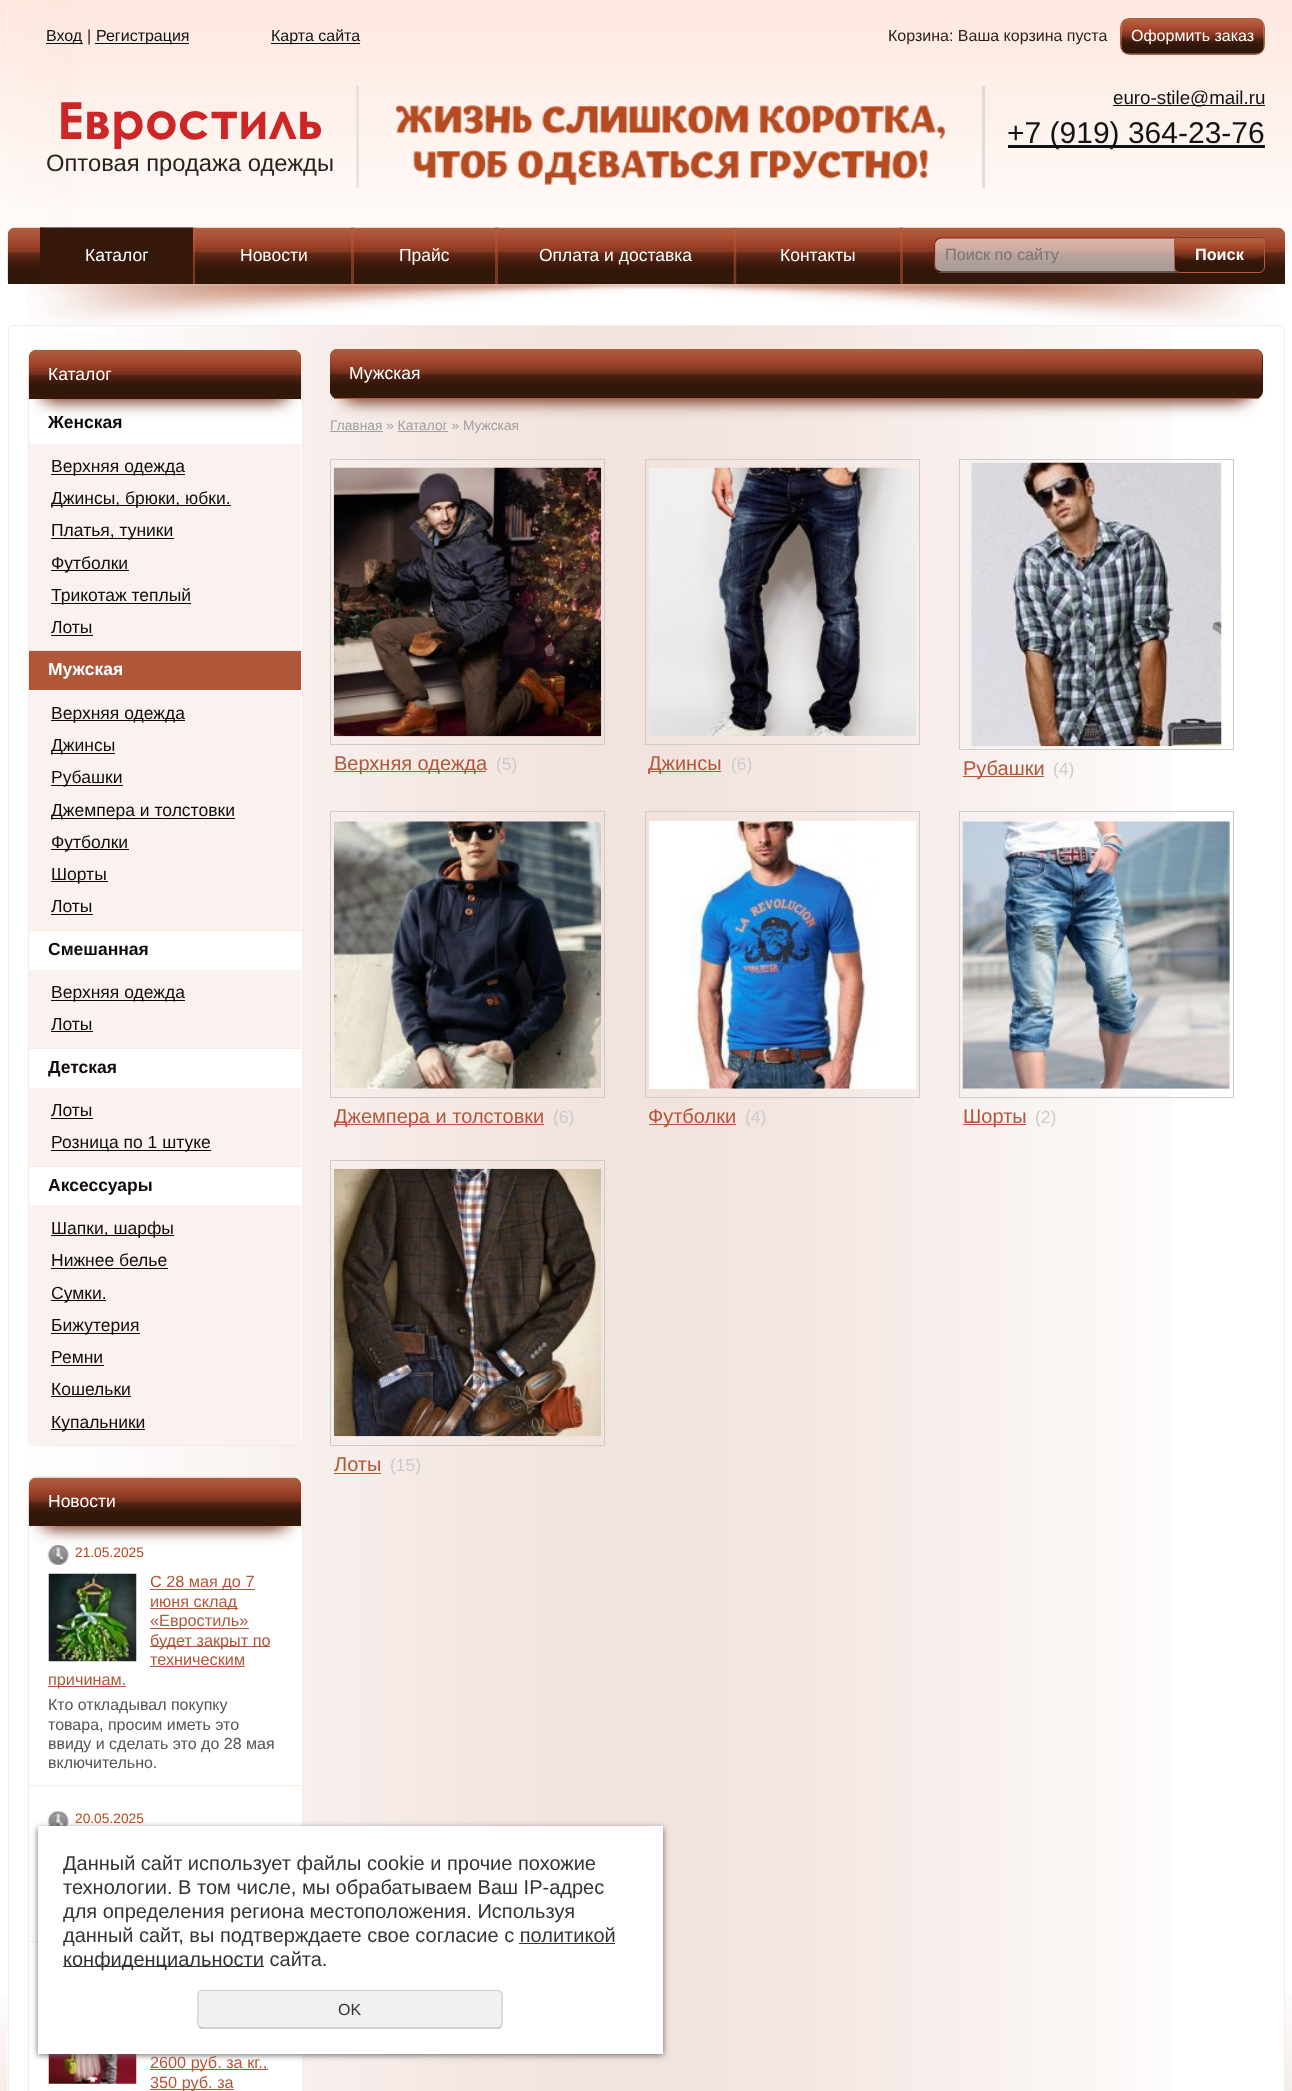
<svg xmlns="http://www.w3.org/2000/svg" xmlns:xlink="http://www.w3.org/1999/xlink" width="1292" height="2091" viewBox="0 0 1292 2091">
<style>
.cls-1{font:16px Liberation Sans;fill:#111214}
.cls-2{font:16px Liberation Sans;fill:#2d211d}
.cls-3{font:16px Liberation Sans;fill:#ffffff}
.cls-4{font:bold 51.25px Century Gothic;fill:#cc2626}
.cls-5{font:23.75px Liberation Sans;fill:#2d211d}
.cls-6{font:18.75px Liberation Sans;fill:#111214}
.cls-7{font:30px Liberation Sans;fill:#111214}
.cls-8{font:17.5px Liberation Sans;fill:#ffffff}
.cls-9{font:16.25px Liberation Sans;fill:#757575}
.cls-10{font:bold 16.25px Liberation Sans;fill:#ffffff}
.cls-11{font:bold 17.5px Liberation Sans;fill:#100a0a}
.cls-12{font:17.5px Liberation Sans;fill:#100a0a}
.cls-13{font:bold 17.5px Liberation Sans;fill:#ffffff}
.cls-14{font:13.75px Liberation Sans;fill:#bf4216}
.cls-15{font:16.25px Liberation Sans;fill:#b05639}
.cls-16{font:16px Liberation Sans;fill:#545454}
.cls-17{font:13.75px Liberation Sans;fill:#a1a09e}
.cls-18{font:20px Liberation Sans;fill:#b05639}
.cls-19{font:17.5px Liberation Sans;fill:#cccccc}
.cls-20{font:20px Liberation Sans;fill:#333333}
.cls-21{font:16px Liberation Sans;fill:#333333}
</style>
<rect width="100%" height="100%" fill="#ffffff"/>
<image xlink:href="image0.png" x="0" y="0" width="1292" height="254"/>
<image xlink:href="image25.png" x="0" y="1995" width="1292" height="96"/>
<rect fill="#ffffff" x="1171" y="230" width="113" height="1861"/>
<image xlink:href="image1.png" x="7" y="0" width="1164" height="2091"/>
<rect fill="#eeeeee" x="1284" y="230" width="1" height="1861"/>
<rect fill="#eeeeee" x="8" y="230" width="1" height="1861"/>
<rect fill="#ffffff" x="74" y="0" width="1211" height="230"/>
<image xlink:href="image2.png" x="7" y="0" width="1278" height="230"/>
<rect fill="#111214" x="46" y="43" width="37" height="1"/>
<rect fill="#111214" x="95" y="43" width="94" height="1"/>
<rect fill="#111214" x="271" y="43" width="89" height="1"/>
<image xlink:href="image3.png" x="1121" y="18" width="143" height="36"/>
<rect fill="none" stroke="#b15d3e" x="1120.5" y="18.5" width="144" height="36" rx="9.5"/>
<rect fill="#c6c6c6" fill-opacity="0.39" x="356" y="86" width="3" height="102"/>
<image xlink:href="image4.png" x="396" y="105" width="549" height="80"/>
<rect fill="#b4b4b7" fill-opacity="0.39" x="982" y="86" width="3" height="102"/>
<rect fill="#111214" x="1113" y="105" width="152" height="1"/>
<rect fill="#111214" x="1008" y="145" width="257" height="3"/>
<path fill="#311709" d="M16 228H1277C1281.5 228 1285 231.5 1285 236V284H8V236C8 231.5 11.5 228 16 228Z"/>
<image xlink:href="image5.png" x="7" y="227" width="1278" height="55"/>
<rect fill="#c15830" fill-opacity="0.5" x="40" y="227" width="3" height="1"/>
<rect fill="#c16232" fill-opacity="0.5" x="192" y="227" width="3" height="57"/>
<rect fill="#35180a" x="40" y="228" width="153" height="56"/>
<image xlink:href="image6.png" x="40" y="227" width="153" height="1"/>
<rect fill="#c15c32" fill-opacity="0.5" x="351" y="227" width="3" height="57"/>
<rect fill="#c15830" fill-opacity="0.5" x="495" y="227" width="3" height="57"/>
<image xlink:href="image7.png" x="733" y="227" width="4" height="57"/>
<rect fill="#c15830" fill-opacity="0.5" x="900" y="227" width="3" height="57"/>
<rect fill="#ffffff" fill-opacity="0.58" x="934" y="238" width="331" height="35" rx="8"/>
<path fill="none" stroke="#240b05" stroke-width="1.2" d="M1262.5 270C1261 271 1259.5 272 1257.5 272H941C939.5 272 937.5 271 936.5 270"/>
<path fill="none" stroke="#842316" stroke-width="1.2" d="M936.5 270C935 268.5 934.5 267 934.5 265V245C934.5 243 935 241.5 936.5 240C937.5 239 939.5 238 941 238H1257.5C1259.5 238 1261 239 1262.5 240C1263.5 241.5 1264.5 243 1264.5 245V265C1264.5 267 1263.5 268.5 1262.5 270"/>
<rect fill="#311709" x="1174" y="236" width="91" height="37" rx="6"/>
<image xlink:href="image8.png" x="1175" y="237" width="90" height="34"/>
<rect fill="none" stroke="#b15d3e" x="1174.5" y="236.5" width="90" height="36" rx="5.5"/>
<rect fill="#ffffff" x="8" y="284" width="1277" height="47"/>
<image xlink:href="image9.png" x="26" y="284" width="1250" height="41"/>
<image xlink:href="image10.png" x="115" y="326" width="1059" height="5"/>
<path fill="#eeeeee" d="M14 326H1279C1282 326 1284 328 1285 331C1285 328 1282 325 1279 325H14C11 325 8 328 8 331C8 328 10 326 14 326Z"/>
<path fill="#eeeeee" d="M1284 331H1285C1285 327 1281.5 325 1278 325C1281 325 1284 328 1284 331Z"/>
<path fill="#eeeeee" d="M14 325C10.5 325 8 327.5 8 331H9C9 328 12 325 15 325Z"/>
<rect fill="#ffffff" stroke="#f6ebe0" x="28.5" y="349.5" width="274" height="1096" rx="7.5"/>
<rect fill="#753a20" filter="blur(9px)" x="46" y="385" width="238" height="14"/>
<rect fill="#753a20" filter="blur(9px)" x="46" y="383" width="238" height="13"/>
<rect fill="#a84f33" filter="blur(6px)" x="41" y="370" width="248" height="24"/>
<path fill="#34190a" d="M37 350H293C297.5 350 301 353.5 301 358V399H29V358C29 353.5 32.5 350 37 350Z"/>
<image xlink:href="image11.png" x="28" y="350" width="274" height="45"/>
<rect fill="#f6ebe0" x="29" y="650" width="272" height="1"/>
<rect fill="#f9f2f1" x="29" y="444" width="272" height="206"/>
<rect fill="#100a0a" x="51" y="474" width="134" height="1"/>
<rect fill="#100a0a" x="51" y="505" width="180" height="1"/>
<rect fill="#100a0a" x="51" y="538" width="123" height="1"/>
<rect fill="#100a0a" x="51" y="570" width="78" height="1"/>
<rect fill="#100a0a" x="51" y="603" width="140" height="1"/>
<rect fill="#100a0a" x="51" y="635" width="42" height="1"/>
<rect fill="#f6ebe0" x="29" y="930" width="272" height="1"/>
<rect fill="#b05639" x="29" y="651" width="272" height="39"/>
<rect fill="#f9f2f1" x="29" y="690" width="272" height="240"/>
<rect fill="#100a0a" x="51" y="720" width="134" height="1"/>
<rect fill="#100a0a" x="51" y="753" width="64" height="1"/>
<rect fill="#100a0a" x="51" y="785" width="72" height="1"/>
<rect fill="#100a0a" x="51" y="818" width="184" height="1"/>
<rect fill="#100a0a" x="51" y="849" width="78" height="1"/>
<rect fill="#100a0a" x="51" y="881" width="57" height="1"/>
<rect fill="#100a0a" x="51" y="914" width="42" height="1"/>
<rect fill="#f6ebe0" x="29" y="1048" width="272" height="1"/>
<rect fill="#f9f2f1" x="29" y="970" width="272" height="78"/>
<rect fill="#100a0a" x="51" y="1000" width="134" height="1"/>
<rect fill="#100a0a" x="51" y="1031" width="42" height="1"/>
<rect fill="#f6ebe0" x="29" y="1166" width="272" height="1"/>
<rect fill="#f9f2f1" x="29" y="1088" width="272" height="78"/>
<rect fill="#100a0a" x="51" y="1118" width="42" height="1"/>
<rect fill="#100a0a" x="51" y="1150" width="160" height="1"/>
<rect fill="#f9f2f1" x="29" y="1205" width="272" height="240"/>
<rect fill="#100a0a" x="51" y="1235" width="123" height="1"/>
<rect fill="#100a0a" x="51" y="1268" width="117" height="1"/>
<rect fill="#100a0a" x="51" y="1300" width="55" height="1"/>
<rect fill="#100a0a" x="51" y="1333" width="89" height="1"/>
<rect fill="#100a0a" x="51" y="1365" width="53" height="1"/>
<rect fill="#100a0a" x="51" y="1396" width="80" height="1"/>
<rect fill="#100a0a" x="51" y="1429" width="94" height="1"/>
<rect fill="#ffffff" stroke="#f6ebe0" x="28.5" y="1476.5" width="274" height="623" rx="7.5"/>
<rect fill="#753a20" filter="blur(9px)" x="46" y="1513" width="238" height="13"/>
<rect fill="#753a20" filter="blur(9px)" x="46" y="1510" width="238" height="14"/>
<rect fill="#a84f33" filter="blur(6px)" x="41" y="1498" width="248" height="23"/>
<path fill="#34190a" d="M37 1478H293C297.5 1478 301 1481.5 301 1486V1526H29V1486C29 1481.5 32.5 1478 37 1478Z"/>
<image xlink:href="image12.png" x="28" y="1477" width="274" height="46"/>
<rect fill="#f6ebe0" x="29" y="1785" width="272" height="1"/>
<image xlink:href="image13.png" x="47" y="1545" width="22" height="20"/>
<image xlink:href="image14.png" x="48" y="1573" width="89" height="89"/>
<rect fill="#b05639" x="150" y="1589" width="105" height="1"/>
<rect fill="#b05639" x="150" y="1608" width="88" height="1"/>
<rect fill="#b05639" x="150" y="1628" width="99" height="1"/>
<rect fill="#b05639" x="150" y="1646" width="120" height="1"/>
<rect fill="#b05639" x="150" y="1666" width="95" height="1"/>
<rect fill="#b05639" x="48" y="1686" width="78" height="1"/>
<rect fill="#f6ebe0" x="29" y="1941" width="9" height="1"/>
<image xlink:href="image15.png" x="47" y="1811" width="22" height="15"/>
<image xlink:href="image16.png" x="48" y="2054" width="89" height="30"/>
<rect fill="#b05639" x="150" y="2069" width="118" height="1"/>
<rect fill="#b05639" x="150" y="2089" width="84" height="1"/>
<rect fill="#753a20" filter="blur(9px)" x="348" y="384" width="897" height="15"/>
<rect fill="#753a20" filter="blur(9px)" x="348" y="381" width="897" height="15"/>
<rect fill="#a84f33" filter="blur(6px)" x="343" y="369" width="907" height="25"/>
<rect fill="#34190a" x="330" y="349" width="933" height="50" rx="8"/>
<image xlink:href="image17.png" x="330" y="349" width="933" height="45"/>
<rect fill="#b15d3e" x="334" y="398" width="925" height="1"/>
<rect fill="#a1a09e" x="330" y="431" width="53" height="1"/>
<rect fill="#a1a09e" x="398" y="431" width="50" height="1"/>
<rect fill="none" stroke="#cccccc" x="330.5" y="459.5" width="274" height="285"/>
<image xlink:href="image18.png" x="333" y="467" width="269" height="270"/>
<rect fill="#b05639" x="334" y="771" width="152" height="1"/>
<rect fill="none" stroke="#cccccc" x="645.5" y="459.5" width="274" height="285"/>
<image xlink:href="image19.png" x="649" y="467" width="267" height="270"/>
<rect fill="#b05639" x="649" y="771" width="72" height="1"/>
<rect fill="none" stroke="#cccccc" x="959.5" y="459.5" width="274" height="290"/>
<image xlink:href="image20.png" x="971" y="462" width="251" height="285"/>
<rect fill="#b05639" x="963" y="776" width="81" height="1"/>
<rect fill="none" stroke="#cccccc" x="330.5" y="811.5" width="274" height="286"/>
<rect fill="#ffffff" x="334" y="821" width="267" height="268"/>
<image xlink:href="image21.png" x="333" y="821" width="269" height="268"/>
<rect fill="#b05639" x="334" y="1124" width="210" height="1"/>
<rect fill="none" stroke="#cccccc" x="645.5" y="811.5" width="274" height="286"/>
<rect fill="#ffffff" x="649" y="821" width="267" height="268"/>
<image xlink:href="image22.png" x="686" y="821" width="189" height="268"/>
<rect fill="#b05639" x="649" y="1124" width="87" height="1"/>
<rect fill="none" stroke="#cccccc" x="959.5" y="811.5" width="274" height="286"/>
<rect fill="#ffffff" x="963" y="821" width="208" height="268"/>
<image xlink:href="image23.png" x="962" y="821" width="268" height="268"/>
<rect fill="#b05639" x="963" y="1124" width="63" height="1"/>
<rect fill="none" stroke="#cccccc" x="330.5" y="1160.5" width="274" height="285"/>
<image xlink:href="image24.png" x="333" y="1168" width="268" height="269"/>
<rect fill="#b05639" x="334" y="1473" width="47" height="1"/>
<rect fill="#666666" filter="blur(3px)" x="38" y="1828" width="625" height="227"/>
<rect fill="#ffffff" x="38" y="1826" width="625" height="228"/>
<rect fill="#333333" x="519" y="1943" width="96" height="1"/>
<rect fill="#333333" x="63" y="1966" width="201" height="1"/>
<rect fill="#f1f1f1" x="198" y="1990" width="305" height="39" rx="5"/>
<path fill="none" stroke="#b3b3b3" stroke-width="1.2" d="M500.5 2027C500 2027.5 498.5 2028 497.5 2028H202.5C201.5 2028 200 2027.5 199.5 2027"/>
<path fill="none" stroke="#cccccc" stroke-width="1.2" d="M199.5 2027C196.5 2024 198 2017.5 198 2014V2004.5C198 2001.5 196 1990.5 202.5 1990.5H497.5C504 1990.5 502 2001.5 502 2004.5V2014C502 2017.5 503.5 2024 500.5 2027"/>
<text class="cls-1" x="46" y="41">Вход</text>
<text class="cls-2" x="87" y="41">|</text>
<text class="cls-1" x="96" y="41">Регистрация</text>
<text class="cls-1" x="271" y="41">Карта сайта</text>
<text class="cls-2" x="888" y="41">Корзина: Ваша корзина пуста</text>
<text class="cls-3" x="1131" y="41">Оформить заказ</text>
<text class="cls-4" x="57" y="139">Евростиль</text>
<text class="cls-5" x="46" y="171">Оптовая продажа одежды</text>
<text class="cls-6" x="1113" y="104">euro-stile@mail.ru</text>
<text class="cls-7" x="1007" y="143">+7 (919) 364-23-76</text>
<text class="cls-8" x="85" y="261">Каталог</text>
<text class="cls-8" x="240" y="261">Новости</text>
<text class="cls-8" x="399" y="261">Прайс</text>
<text class="cls-8" x="539" y="261">Оплата и доставка</text>
<text class="cls-8" x="780" y="261">Контакты</text>
<text class="cls-9" x="945" y="260">Поиск по сайту</text>
<text class="cls-10" x="1195" y="260">Поиск</text>
<text class="cls-8" x="48" y="380">Каталог</text>
<text class="cls-11" x="48" y="428">Женская</text>
<text class="cls-12"><tspan x="51" y="472">Верхняя одежда</tspan><tspan x="51" y="504">Джинсы, брюки, юбки.</tspan><tspan x="51" y="536">Платья, туники</tspan><tspan x="51" y="569">Футболки</tspan><tspan x="51" y="601">Трикотаж теплый</tspan><tspan x="51" y="633">Лоты</tspan></text>
<text class="cls-13" x="48" y="675">Мужская</text>
<text class="cls-12"><tspan x="51" y="719">Верхняя одежда</tspan><tspan x="51" y="751">Джинсы</tspan><tspan x="51" y="783">Рубашки</tspan><tspan x="51" y="816">Джемпера и толстовки</tspan><tspan x="51" y="848">Футболки</tspan><tspan x="51" y="880">Шорты</tspan><tspan x="51" y="912">Лоты</tspan></text>
<text class="cls-11" x="48" y="955">Смешанная</text>
<text class="cls-12"><tspan x="51" y="998">Верхняя одежда</tspan><tspan x="51" y="1030">Лоты</tspan></text>
<text class="cls-11" x="48" y="1073">Детская</text>
<text class="cls-12"><tspan x="51" y="1116">Лоты</tspan><tspan x="51" y="1148">Розница по 1 штуке</tspan></text>
<text class="cls-11" x="48" y="1191">Аксессуары</text>
<text class="cls-12"><tspan x="51" y="1234">Шапки, шарфы</tspan><tspan x="51" y="1266">Нижнее белье</tspan><tspan x="51" y="1299">Сумки.</tspan><tspan x="51" y="1331">Бижутерия</tspan><tspan x="51" y="1363">Ремни</tspan><tspan x="51" y="1395">Кошельки</tspan><tspan x="51" y="1428">Купальники</tspan></text>
<text class="cls-8" x="48" y="1507">Новости</text>
<text class="cls-14" x="75" y="1557">21.05.2025</text>
<text class="cls-15"><tspan x="150" y="1587">С 28 мая до 7</tspan><tspan x="150" y="1607">июня склад</tspan><tspan x="150" y="1626">«Евростиль»</tspan><tspan x="150" y="1646">будет закрыт по</tspan><tspan x="150" y="1665">техническим</tspan></text>
<text class="cls-15" x="48" y="1685">причинам.</text>
<text class="cls-16"><tspan x="48" y="1710">Кто откладывал покупку</tspan><tspan x="48" y="1730">товара, просим иметь это</tspan><tspan x="48" y="1749">ввиду и сделать это до 28 мая</tspan><tspan x="48" y="1768">включительно.</tspan></text>
<text class="cls-14" x="75" y="1823">20.05.2025</text>
<text class="cls-15"><tspan x="150" y="2068">2600 руб. за кг.,</tspan><tspan x="150" y="2088">350 руб. за</tspan></text>
<text class="cls-8" x="349" y="379">Мужская</text>
<text class="cls-17" x="330" y="430">Главная » Каталог » Мужская</text>
<text class="cls-18" x="334" y="770">Верхняя одежда</text>
<text class="cls-19" x="496" y="770">(5)</text>
<text class="cls-18" x="648" y="770">Джинсы</text>
<text class="cls-19" x="731" y="770">(6)</text>
<text class="cls-18" x="963" y="775">Рубашки</text>
<text class="cls-19" x="1053" y="775">(4)</text>
<text class="cls-18" x="334" y="1123">Джемпера и толстовки</text>
<text class="cls-19" x="553" y="1123">(6)</text>
<text class="cls-18" x="648" y="1123">Футболки</text>
<text class="cls-19" x="745" y="1123">(4)</text>
<text class="cls-18" x="963" y="1123">Шорты</text>
<text class="cls-19" x="1035" y="1123">(2)</text>
<text class="cls-18" x="334" y="1471">Лоты</text>
<text class="cls-19" x="390" y="1471">(15)</text>
<text class="cls-20"><tspan x="63" y="1870">Данный сайт использует файлы cookie и прочие похожие</tspan><tspan x="63" y="1894">технологии. В том числе, мы обрабатываем Ваш IP-адрес</tspan><tspan x="63" y="1918">для определения региона местоположения. Используя</tspan><tspan x="63" y="1942">данный сайт, вы подтверждаете свое согласие с политикой</tspan><tspan x="63" y="1966">конфиденциальности сайта.</tspan></text>
<text class="cls-21" x="338" y="2015">OK</text>
</svg>
